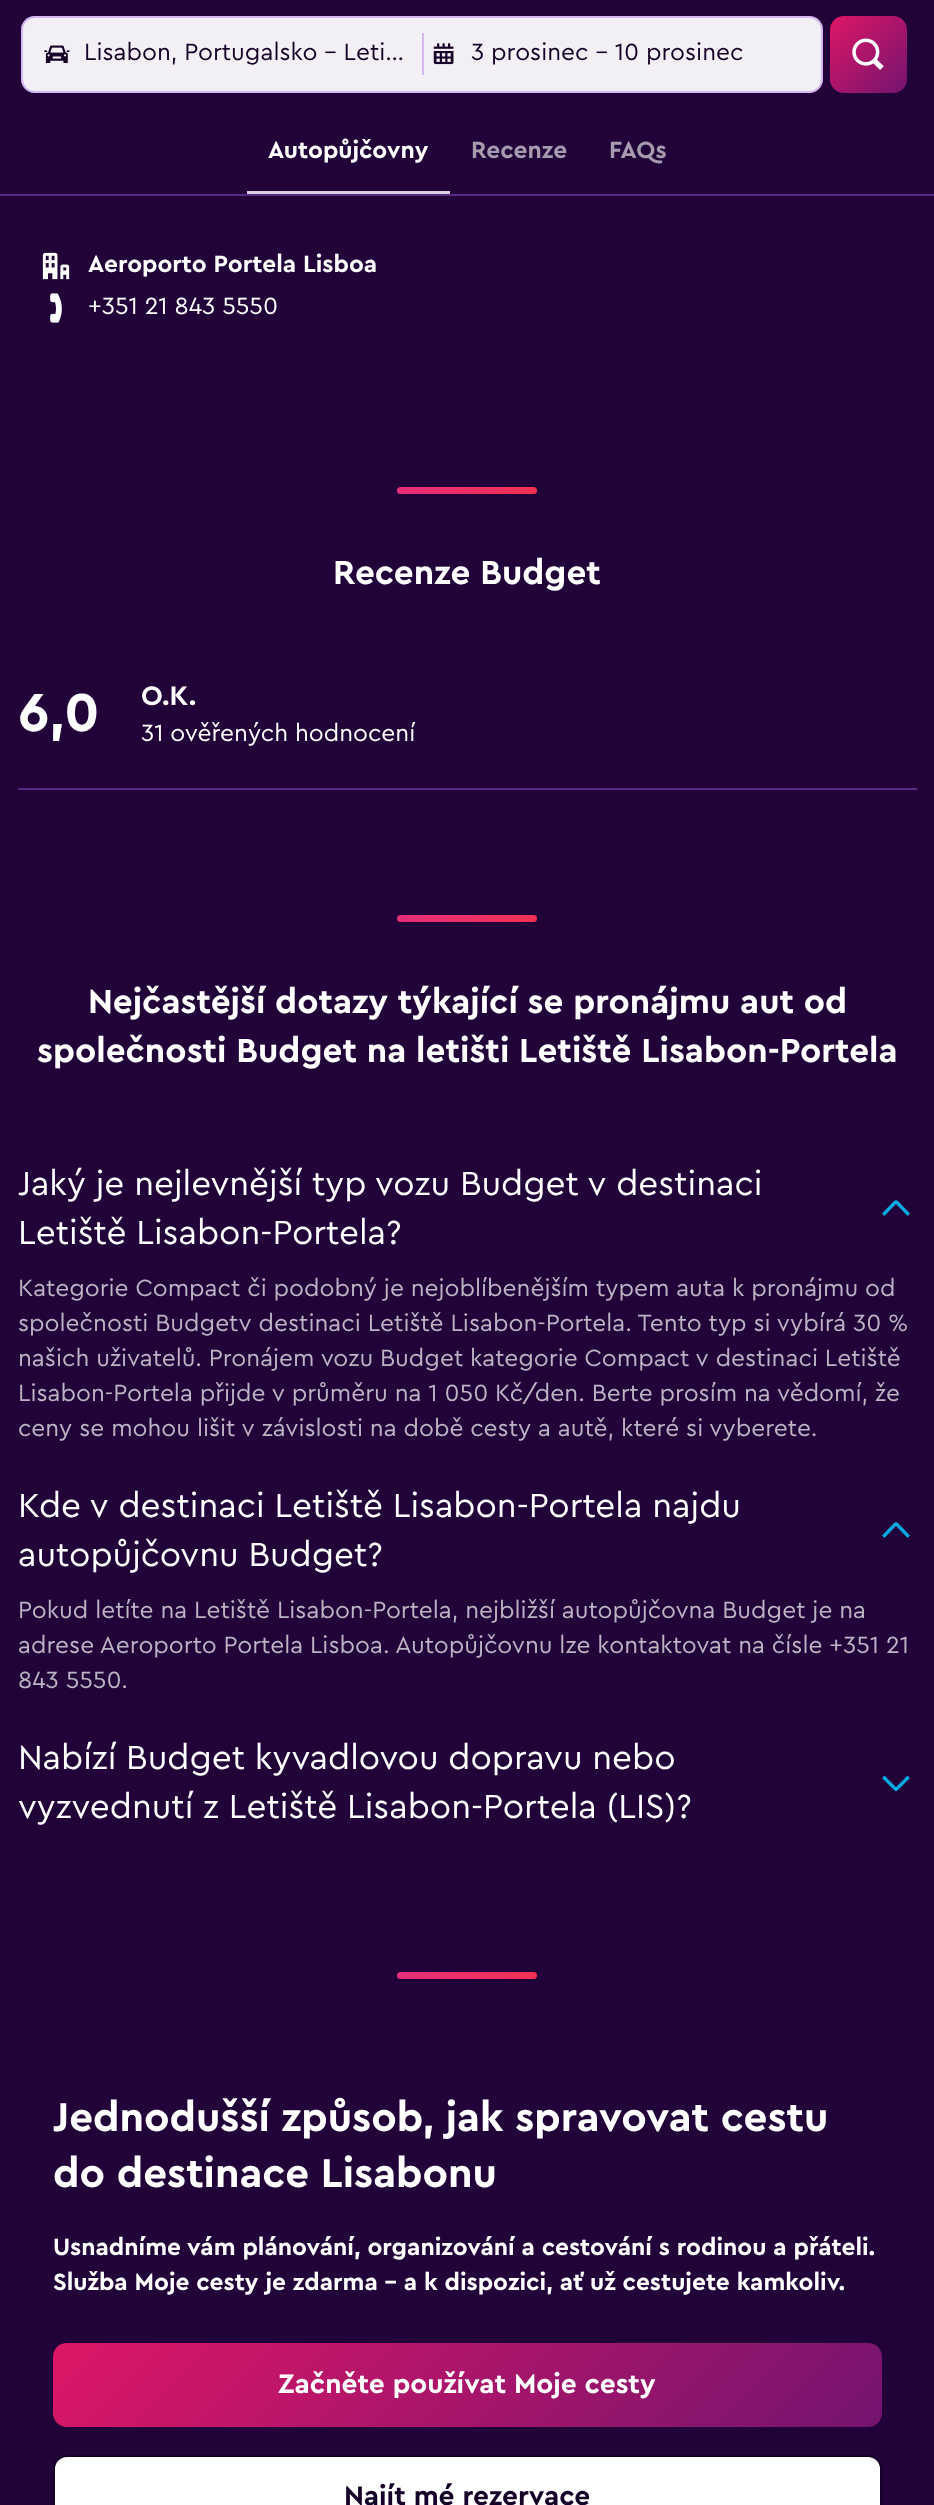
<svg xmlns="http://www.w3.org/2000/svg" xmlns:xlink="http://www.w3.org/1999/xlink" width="934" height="2505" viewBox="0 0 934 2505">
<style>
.cls-1{font:24.5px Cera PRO;fill:#150127}
.cls-2{font:bold 24.5px Cera PRO;fill:#ffffff}
.cls-3{font:bold 24.5px Cera PRO;fill:#a79bb0}
.cls-4{font:24.5px Cera PRO;fill:#ffffff}
.cls-5{font:bold 35px Cera PRO;fill:#ffffff}
.cls-6{font:bold 56px Cera PRO;fill:#ffffff}
.cls-7{font:bold 28px Cera PRO;fill:#ffffff}
.cls-8{font:35px Cera PRO;fill:#ffffff}
.cls-9{font:24.5px Cera PRO;fill:#bcb3c4}
.cls-10{font:bold 42px Cera PRO;fill:#ffffff}
.cls-11{font:bold 28px Cera PRO;fill:#150127}
</style>
<defs>
<linearGradient id="g1" gradientUnits="userSpaceOnUse" x1="830" y1="16" x2="907" y2="93"><stop offset="0" stop-color="#de1666"/><stop offset="1" stop-color="#73146f"/></linearGradient>
<linearGradient id="g2" gradientUnits="userSpaceOnUse" x1="431" y1="453" x2="504" y2="527"><stop offset="0" stop-color="#e52e7a"/><stop offset="1" stop-color="#f23051"/></linearGradient>
<linearGradient id="g3" gradientUnits="userSpaceOnUse" x1="431" y1="882" x2="504" y2="956"><stop offset="0" stop-color="#e52e7a"/><stop offset="1" stop-color="#f23051"/></linearGradient>
<linearGradient id="g4" gradientUnits="userSpaceOnUse" x1="431" y1="1939" x2="504" y2="2013"><stop offset="0" stop-color="#e52e7a"/><stop offset="1" stop-color="#f23051"/></linearGradient>
<linearGradient id="g5" gradientUnits="userSpaceOnUse" x1="239" y1="2157" x2="696" y2="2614"><stop offset="0" stop-color="#de1666"/><stop offset="1" stop-color="#73146f"/></linearGradient>
</defs>
<rect width="100%" height="100%" fill="#21033a"/>
<rect fill="#f3f0f5" x="21" y="16" width="802" height="77" rx="14"/>
<rect fill="none" stroke="#a762ea" stroke-opacity="0.4" stroke-width="2" x="22" y="17" width="800" height="75" rx="13"/>
<image xlink:href="image0.png" x="44" y="45" width="26" height="18"/>
<rect fill="#d5b7f1" x="422" y="33" width="2" height="42"/>
<image xlink:href="image1.png" x="433" y="43" width="21" height="22"/>
<rect fill="url(#g1)" x="830" y="16" width="77" height="77" rx="14"/>
<image xlink:href="image2.png" x="852" y="38" width="32" height="32"/>
<rect fill="#572980" x="0" y="194" width="934" height="2"/>
<rect fill="#dad2e0" x="247" y="191" width="203" height="3"/>
<image xlink:href="image3.png" x="42" y="252" width="28" height="28"/>
<image xlink:href="image4.png" x="50" y="293" width="12" height="30"/>
<rect fill="url(#g2)" x="397" y="487" width="140" height="7" rx="3.5"/>
<rect fill="#572980" x="18" y="788" width="899" height="2"/>
<rect fill="url(#g3)" x="397" y="915" width="140" height="7" rx="3.5"/>
<path fill="#08a7dd" d="M882 1213.5L894 1201C895 1200 897 1200 898 1201L910 1213.5L907.5 1216L896 1204L884.5 1216Z"/>
<path fill="#08a7dd" d="M882 1535.5L894 1523C895 1522 897 1522 898 1523L910 1535.5L907.5 1538L896 1526L884.5 1538Z"/>
<path fill="#08a7dd" d="M910 1778L898 1790C897 1791.5 895 1791.5 894 1790L882 1778L884.5 1775.5L896 1787L907.5 1775.5Z"/>
<rect fill="url(#g4)" x="397" y="1972" width="140" height="7" rx="3.5"/>
<rect fill="url(#g5)" x="53" y="2343" width="829" height="84" rx="14"/>
<rect fill="#ffffff" stroke="#150127" stroke-width="2" x="54" y="2456" width="827" height="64" rx="13"/>
<text class="cls-1" x="84" y="60">Lisabon, Portugalsko - Leti…</text>
<text class="cls-1" x="471" y="60">3 prosinec – 10 prosinec</text>
<text class="cls-2" x="268" y="158">Autopůjčovny</text>
<text class="cls-3" x="471" y="158">Recenze</text>
<text class="cls-3" x="609" y="158">FAQs</text>
<text class="cls-2" x="88" y="272">Aeroporto Portela Lisboa</text>
<text class="cls-4" x="88" y="314">+351 21 843 5550</text>
<text class="cls-5" x="333" y="584">Recenze Budget</text>
<text class="cls-6" x="18" y="731">6,0</text>
<text class="cls-7" x="141" y="705">O.K.</text>
<text class="cls-4" x="141" y="741">31 ověřených hodnocení</text>
<text class="cls-5" x="88" y="1013">Nejčastější dotazy týkající se pronájmu aut od</text>
<text class="cls-5" x="37" y="1062">společnosti Budget na letišti Letiště Lisabon-Portela</text>
<text class="cls-8"><tspan x="18" y="1195">Jaký je nejlevnější typ vozu Budget v destinaci</tspan><tspan x="18" y="1244">Letiště Lisabon-Portela?</tspan></text>
<text class="cls-9"><tspan x="18" y="1296">Kategorie Compact či podobný je nejoblíbenějším typem auta k pronájmu od</tspan><tspan x="18" y="1331">společnosti Budgetv destinaci Letiště Lisabon-Portela. Tento typ si vybírá 30 %</tspan><tspan x="18" y="1366">našich uživatelů. Pronájem vozu Budget kategorie Compact v destinaci Letiště</tspan><tspan x="18" y="1401">Lisabon-Portela přijde v průměru na 1 050 Kč/den. Berte prosím na vědomí, že</tspan><tspan x="18" y="1436">ceny se mohou lišit v závislosti na době cesty a autě, které si vyberete.</tspan></text>
<text class="cls-8"><tspan x="18" y="1517">Kde v destinaci Letiště Lisabon-Portela najdu</tspan><tspan x="18" y="1566">autopůjčovnu Budget?</tspan></text>
<text class="cls-9"><tspan x="18" y="1618">Pokud letíte na Letiště Lisabon-Portela, nejbližší autopůjčovna Budget je na</tspan><tspan x="18" y="1653">adrese Aeroporto Portela Lisboa. Autopůjčovnu lze kontaktovat na čísle +351 21</tspan><tspan x="18" y="1688">843 5550.</tspan></text>
<text class="cls-8"><tspan x="18" y="1769">Nabízí Budget kyvadlovou dopravu nebo</tspan><tspan x="18" y="1818">vyzvednutí z Letiště Lisabon-Portela (LIS)?</tspan></text>
<text class="cls-10"><tspan x="53" y="2131">Jednodušší způsob, jak spravovat cestu</tspan><tspan x="53" y="2187">do destinace Lisabonu</tspan></text>
<text class="cls-2"><tspan x="53" y="2255">Usnadníme vám plánování, organizování a cestování s rodinou a přáteli.</tspan><tspan x="53" y="2290">Služba Moje cesty je zdarma – a k dispozici, ať už cestujete kamkoliv.</tspan></text>
<text class="cls-7" x="278" y="2393">Začněte používat Moje cesty</text>
<text class="cls-11" x="344" y="2505">Najít mé rezervace</text>
</svg>
